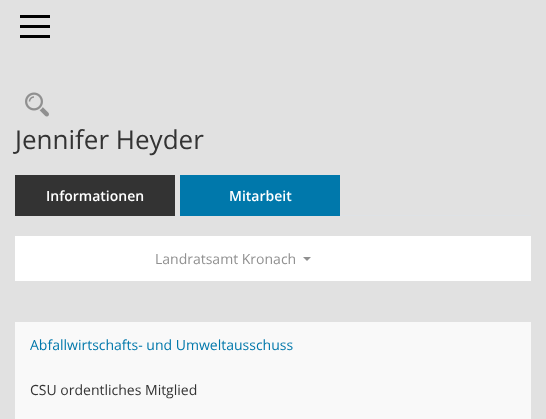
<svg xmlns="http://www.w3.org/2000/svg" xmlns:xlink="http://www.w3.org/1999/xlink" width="546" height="419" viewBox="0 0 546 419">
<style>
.cls-1{font:26px Open Sans;fill:#333333}
.cls-2{font:600 14px Open Sans;fill:#ffffff}
.cls-3{font:14px Open Sans;fill:#909090}
.cls-4{font:14px Open Sans;fill:#0078ab}
.cls-5{font:14px Open Sans;fill:#333333}
</style>
<rect width="100%" height="100%" fill="#e1e1e1"/>
<rect fill="#000000" x="20" y="15" width="30" height="3"/>
<rect fill="#000000" x="20" y="25" width="30" height="3"/>
<rect fill="#000000" x="20" y="35" width="30" height="3"/>
<image xlink:href="image0.png" x="25" y="92" width="24" height="25"/>
<rect fill="#dee2e6" x="175" y="215" width="356" height="1"/>
<rect fill="#333333" x="15" y="175" width="160" height="41"/>
<rect fill="#0078ab" x="180" y="175" width="160" height="41"/>
<rect fill="#ffffff" x="15" y="236" width="516" height="45"/>
<path fill="#909090" d="M303 257H311L307 261Z"/>
<rect fill="#f9f9f9" x="15" y="322" width="516" height="97"/>
<text class="cls-1" x="15" y="149">Jennifer Heyder</text>
<text class="cls-2" x="46" y="201">Informationen</text>
<text class="cls-2" x="229" y="201">Mitarbeit</text>
<text class="cls-3" x="155" y="264">Landratsamt Kronach</text>
<text class="cls-4" x="30" y="350">Abfallwirtschafts- und Umweltausschuss</text>
<text class="cls-5" x="30" y="395">CSU ordentliches Mitglied</text>
</svg>
